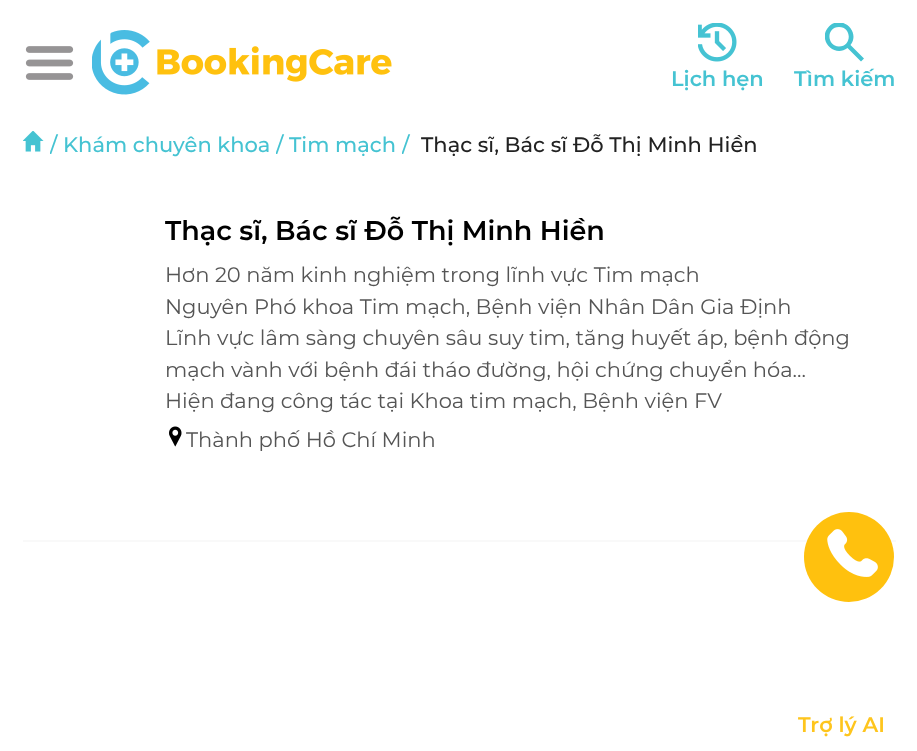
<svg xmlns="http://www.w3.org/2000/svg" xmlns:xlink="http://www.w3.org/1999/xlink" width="917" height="751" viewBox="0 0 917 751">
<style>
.cls-1{font:600 21px Montserrat;fill:#45c3d2}
.cls-2{font:500 21px Montserrat;fill:#45c3d2}
.cls-3{font:500 21px Montserrat;fill:#222222}
.cls-4{font:600 27px Montserrat;fill:#000000}
.cls-5{font:21px Montserrat;fill:#555555}
.cls-6{font:600 21px Montserrat;fill:#fec51d}
</style>
<defs>
<clipPath id="clip1"><rect x="825" y="23" width="39" height="39"/></clipPath>
<clipPath id="clip2"><rect x="50" y="129" width="708" height="32"/></clipPath>
<clipPath id="clip3"><rect x="276" y="129" width="120" height="32"/></clipPath>
<clipPath id="clip4"><rect x="402" y="129" width="356" height="32"/></clipPath>
</defs>
<rect width="100%" height="100%" fill="#ffffff"/>
<image xlink:href="image0.png" x="25" y="46" width="49" height="34"/>
<image xlink:href="image1.png" x="92" y="30" width="300" height="65"/>
<image xlink:href="image2.png" x="698" y="23" width="39" height="39"/>
<g clip-path="url(#clip1)">
<path fill="#45c3d2" d="M861 61.5L847.5 48C834 58.5 816.5 39 829 26.5C841.5 14 861 31.5 850.5 45L864 58.5ZM839 46.5C852 46.5 852 27 839 27C826 27 826.5 46.5 839 46.5"/>
</g>
<image xlink:href="image3.png" x="23" y="131" width="21" height="21"/>
<image xlink:href="image4.png" x="169" y="426" width="13" height="21"/>
<rect fill="#f9f9f9" x="23" y="540" width="873" height="2"/>
<circle fill="#ffc10e" cx="849" cy="557" r="45"/>
<image xlink:href="image5.png" x="827" y="529" width="51" height="48"/>
<text class="cls-1" x="671" y="86">Lịch hẹn</text>
<text class="cls-1" x="794" y="86">Tìm kiếm</text>
<g clip-path="url(#clip2)">
<text class="cls-2" x="50" y="152">/</text>
</g>
<text class="cls-2" x="63" y="152">Khám chuyên khoa</text>
<g clip-path="url(#clip3)">
<text class="cls-2" x="276" y="152">/</text>
</g>
<text class="cls-2" x="289" y="152">Tim mạch</text>
<g clip-path="url(#clip4)">
<text class="cls-2" x="402" y="152">/</text>
</g>
<text class="cls-3" x="421" y="152">Thạc sĩ, Bác sĩ Đỗ Thị Minh Hiền</text>
<text class="cls-4" x="165" y="240">Thạc sĩ, Bác sĩ Đỗ Thị Minh Hiền</text>
<text class="cls-5"><tspan x="165" y="282">Hơn 20 năm kinh nghiệm trong lĩnh vực Tim mạch</tspan><tspan x="165" y="314">Nguyên Phó khoa Tim mạch, Bệnh viện Nhân Dân Gia Định</tspan><tspan x="165" y="345">Lĩnh vực lâm sàng chuyên sâu suy tim, tăng huyết áp, bệnh động</tspan><tspan x="165" y="377">mạch vành với bệnh đái tháo đường, hội chứng chuyển hóa...</tspan><tspan x="165" y="408">Hiện đang công tác tại Khoa tim mạch, Bệnh viện FV</tspan></text>
<text class="cls-5" x="186" y="447">Thành phố Hồ Chí Minh</text>
<text class="cls-6" x="798" y="732">Trợ lý AI</text>
</svg>
